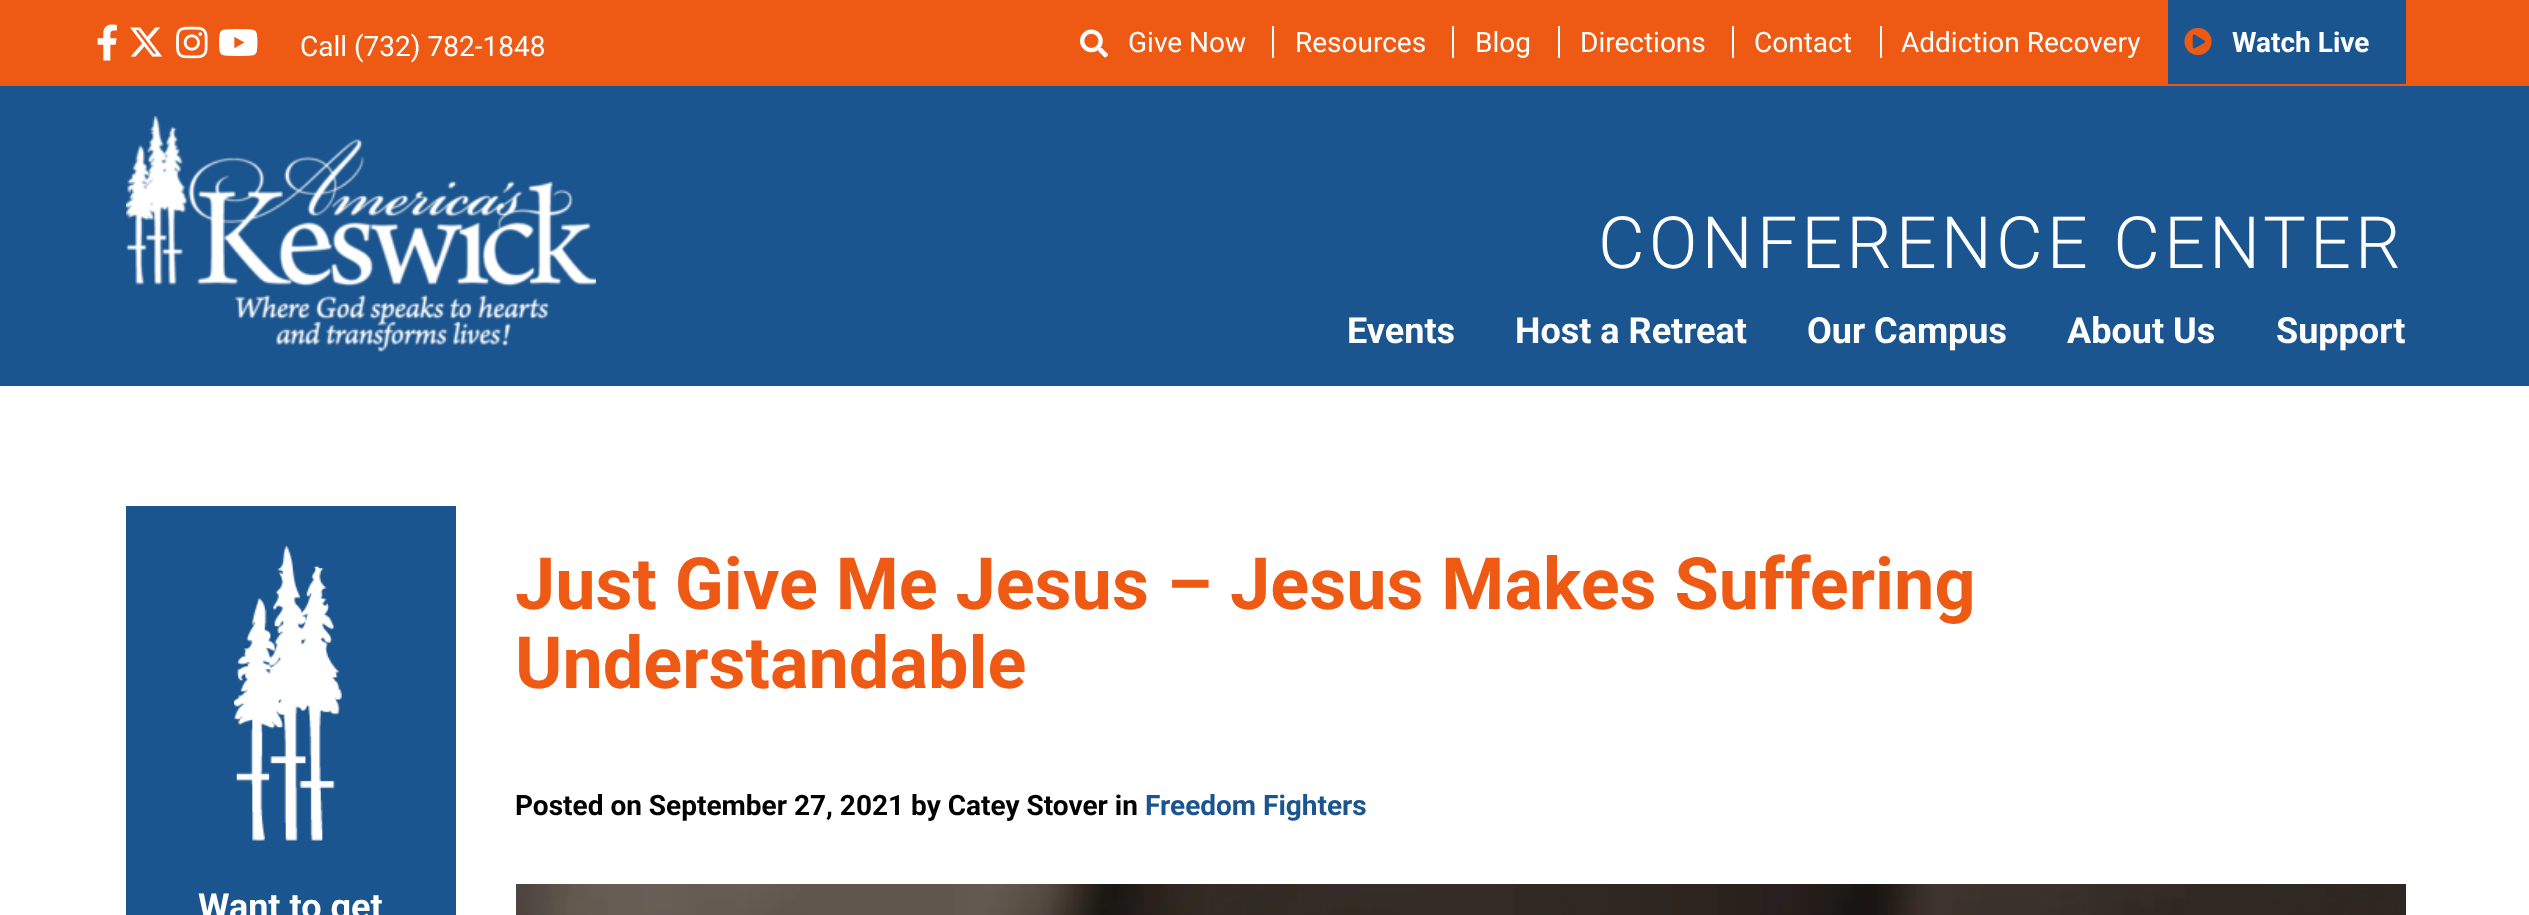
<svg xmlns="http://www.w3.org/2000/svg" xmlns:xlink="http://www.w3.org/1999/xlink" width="2529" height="915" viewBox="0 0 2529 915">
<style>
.cls-1{font:28px Roboto;fill:#ffffff}
.cls-2{font:bold 28px Roboto;fill:#ffffff}
.cls-3{font:300 72px Roboto;letter-spacing:4px;fill:#ffffff}
.cls-4{font:bold 36px Roboto;fill:#ffffff}
.cls-5{font:bold 72px Roboto;fill:#ee5a14}
.cls-6{font:bold 28px Roboto;fill:#000000}
.cls-7{font:bold 28px Roboto;fill:#1b558f}
</style>
<rect width="100%" height="100%" fill="#ffffff"/>
<rect fill="#ee5a14" x="0" y="0" width="2529" height="86"/>
<image xlink:href="image0.png" x="97" y="24" width="20" height="37"/>
<image xlink:href="image1.png" x="130" y="27" width="33" height="30"/>
<image xlink:href="image2.png" x="176" y="26" width="32" height="33"/>
<image xlink:href="image3.png" x="219" y="29" width="39" height="27"/>
<image xlink:href="image4.png" x="1080" y="29" width="28" height="29"/>
<rect fill="#ffffff" x="1272" y="26" width="2" height="32"/>
<rect fill="#ffffff" x="1452" y="26" width="2" height="32"/>
<rect fill="#ffffff" x="1558" y="26" width="2" height="32"/>
<rect fill="#ffffff" x="1732" y="26" width="2" height="32"/>
<rect fill="#ffffff" x="1880" y="26" width="2" height="32"/>
<rect fill="#1b558f" x="2168" y="0" width="238" height="84"/>
<image xlink:href="image5.png" x="2184" y="28" width="28" height="27"/>
<rect fill="#1b558f" x="0" y="86" width="2529" height="300"/>
<image xlink:href="image6.png" x="126" y="116" width="470" height="236"/>
<image xlink:href="image7.png" x="516" y="884" width="1890" height="31"/>
<rect fill="#1b558f" x="126" y="506" width="330" height="409"/>
<image xlink:href="image8.png" x="234" y="546" width="108" height="295"/>
<text class="cls-1" x="300" y="56">Call (732) 782-1848</text>
<text class="cls-1" x="1128" y="52">Give Now</text>
<text class="cls-1" x="1295" y="52">Resources</text>
<text class="cls-1" x="1475" y="52">Blog</text>
<text class="cls-1" x="1580" y="52">Directions</text>
<text class="cls-1" x="1754" y="52">Contact</text>
<text class="cls-1" x="1901" y="52">Addiction Recovery</text>
<text class="cls-2" x="2232" y="52">Watch Live</text>
<text class="cls-3" x="1598" y="268">CONFERENCE CENTER</text>
<text class="cls-4" x="1347" y="343">Events</text>
<text class="cls-4" x="1515" y="343">Host a Retreat</text>
<text class="cls-4" x="1807" y="343">Our Campus</text>
<text class="cls-4" x="2067" y="343">About Us</text>
<text class="cls-4" x="2276" y="343">Support</text>
<text class="cls-5"><tspan x="515" y="609">Just Give Me Jesus – Jesus Makes Suffering</tspan><tspan x="515" y="688">Understandable</tspan></text>
<text class="cls-6" x="515" y="815">Posted on September 27, 2021 by Catey Stover in</text>
<text class="cls-7" x="1145" y="815">Freedom Fighters</text>
<text class="cls-4" x="198" y="919">Want to get</text>
</svg>
